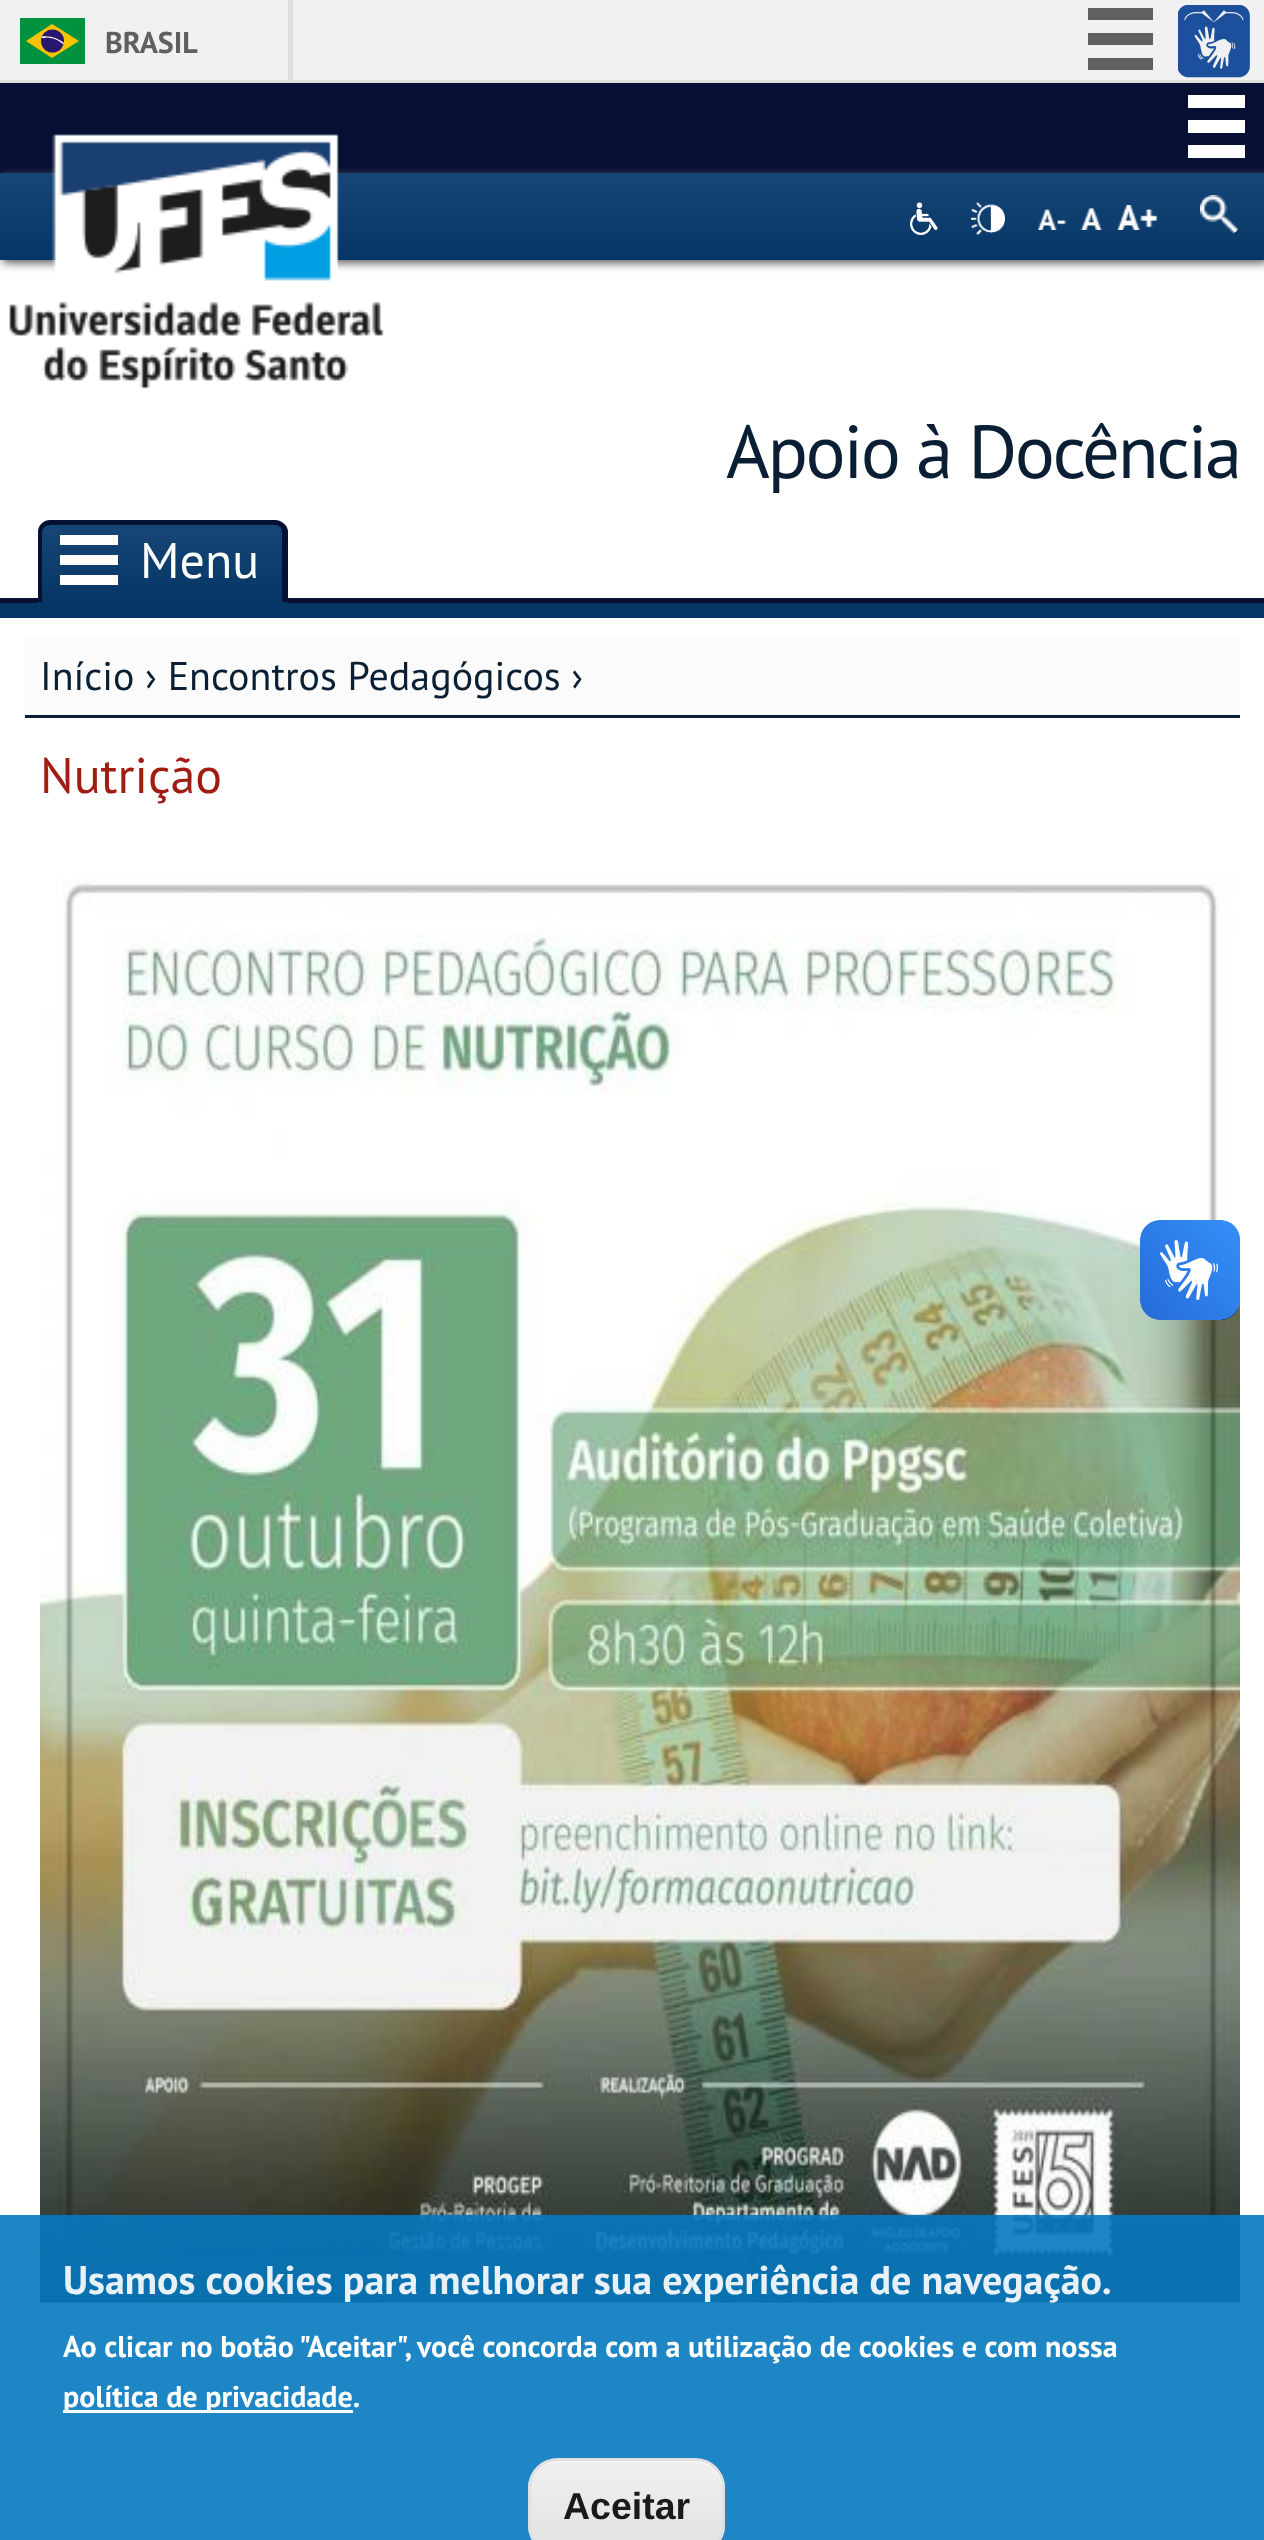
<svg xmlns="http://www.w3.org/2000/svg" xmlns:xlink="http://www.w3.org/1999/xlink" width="1264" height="2540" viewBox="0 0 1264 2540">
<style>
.cls-1{font:bold 30px PT Sans;fill:#606060}
.cls-2{font:75px PT Sans;letter-spacing:-2.5px;fill:#0a1f33}
.cls-3{font:50px PT Sans;fill:#ffffff}
.cls-4{font:40px PT Sans;fill:#0a1f33}
.cls-5{font:50px PT Sans;fill:#a11d14}
.cls-6{font:bold 40px PT Sans;fill:#e7f1f7}
.cls-7{font:bold 30px PT Sans;fill:#ffffff}
.cls-8{font:bold 37.5px Liberation Sans;fill:#1a1a1a}
</style>
<defs>
<linearGradient id="g1" gradientUnits="userSpaceOnUse" x1="633" y1="172" x2="633" y2="260"><stop offset="0" stop-color="#154675"/><stop offset="1" stop-color="#053666"/></linearGradient>
<clipPath id="clip1"><path d="M51 520H275C282 520 288 526 288 533V603H38V533C38 526 44 520 51 520Z"/></clipPath>
<linearGradient id="g2" gradientUnits="userSpaceOnUse" x1="163" y1="525" x2="163" y2="603"><stop offset="0" stop-color="#154675"/><stop offset="1" stop-color="#053666"/></linearGradient>
<clipPath id="clip2"><rect x="528" y="2458" width="197" height="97" rx="30"/></clipPath>
<linearGradient id="g3" gradientUnits="userSpaceOnUse" x1="626" y1="2460" x2="626" y2="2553"><stop offset="0.05" stop-color="#efefef"/><stop offset="1" stop-color="#e2e2e2"/></linearGradient>
</defs>
<rect width="100%" height="100%" fill="#ffffff"/>
<rect fill="#f1f1f1" x="0" y="0" width="1264" height="80"/>
<rect fill="#dfdfdf" x="0" y="80" width="1264" height="3"/>
<rect fill="#dfdfdf" x="288" y="0" width="5" height="80"/>
<rect fill="#00923f" x="20" y="18" width="65" height="46"/>
<path fill="#f8c300" d="M52 24L26 41L52 58L79 41Z"/>
<circle fill="#28166f" cx="52.5" cy="41" r="11.5"/>
<path fill="#ffffff" d="M45.5 37.5C52.5 37.5 58.5 40 63.5 44.5V42.5C57.5 38 50 35.5 42 36.5L41.5 38H45.5Z"/>
<rect fill="#606060" x="1088" y="8" width="65" height="12"/>
<rect fill="#606060" x="1088" y="33" width="65" height="12"/>
<rect fill="#606060" x="1088" y="58" width="65" height="12"/>
<image xlink:href="image0.png" x="1178" y="5" width="72" height="73"/>
<rect fill="#051034" x="0" y="83" width="1264" height="90"/>
<rect fill="#ffffff" x="1188" y="95" width="57" height="13"/>
<rect fill="#ffffff" x="1188" y="120" width="57" height="13"/>
<rect fill="#ffffff" x="1188" y="145" width="57" height="13"/>
<rect fill="#595959" filter="blur(5px)" x="3" y="175" width="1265" height="88"/>
<rect fill="url(#g1)" x="0" y="173" width="1264" height="87"/>
<image xlink:href="image1.png" x="9" y="134" width="375" height="255"/>
<image xlink:href="image2.png" x="910" y="202" width="28" height="33"/>
<image xlink:href="image3.png" x="971" y="202" width="34" height="33"/>
<image xlink:href="image4.png" x="1038" y="209" width="29" height="21"/>
<image xlink:href="image5.png" x="1080" y="207" width="23" height="23"/>
<image xlink:href="image6.png" x="1116" y="205" width="42" height="25"/>
<image xlink:href="image7.png" x="1200" y="195" width="39" height="39"/>
<rect fill="#053666" x="0" y="603" width="1264" height="15"/>
<rect fill="#051034" x="0" y="598" width="1264" height="5"/>
<g clip-path="url(#clip1)">
<rect fill="url(#g2)" x="38" y="525" width="250" height="78"/>
</g>
<path fill="#051034" fill-rule="evenodd" d="M50 520H275C282 520 288 526 288 532V602H38V532C38 526 43 520 50 520ZM50 525H275C279 525 282 528 282 532V602H42V532C42 528 46 525 50 525Z"/>
<rect fill="#ffffff" x="60" y="535" width="58" height="10"/>
<rect fill="#ffffff" x="60" y="555" width="58" height="10"/>
<rect fill="#ffffff" x="60" y="575" width="58" height="10"/>
<rect fill="#fbfbfb" x="25" y="638" width="1215" height="77"/>
<rect fill="#0a1f33" x="25" y="715" width="1215" height="3"/>
<image xlink:href="image8.png" x="40" y="878" width="1200" height="1425"/>
<image xlink:href="image9.png" x="1140" y="1220" width="100" height="100"/>
<image xlink:href="image10.png" x="1140" y="1220" width="100" height="100"/>
<rect fill="#0779bf" fill-opacity="0.9" x="0" y="2215" width="1264" height="325"/>
<rect fill="#ffffff" x="63" y="2410" width="290" height="3"/>
<g clip-path="url(#clip2)">
<rect fill="url(#g3)" x="528" y="2460" width="197" height="80"/>
</g>
<path fill="#ffffff" d="M558 2462H695C710 2462 722 2475 722 2490V2528C722 2531 722 2533 721 2536C722 2532 723 2529 723 2525V2488C723 2473 710 2460 695 2460H558C543 2460 530 2473 530 2488V2490C530 2475 542 2462 558 2462Z"/>
<rect fill="none" stroke="#e0e0e0" stroke-width="3" x="529.5" y="2459.5" width="194" height="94" rx="28.5"/>
<text class="cls-1" x="105" y="53">BRASIL</text>
<text class="cls-2" x="726" y="478">Apoio à Docência</text>
<text class="cls-3" x="140" y="578">Menu</text>
<text class="cls-4" x="40" y="690">Início › Encontros Pedagógicos ›</text>
<text class="cls-5" x="40" y="793">Nutrição</text>
<text class="cls-6" x="63" y="2294">Usamos cookies para melhorar sua experiência de navegação.</text>
<text class="cls-7"><tspan x="63" y="2357">Ao clicar no botão "Aceitar", você concorda com a utilização de cookies e com nossa</tspan><tspan x="63" y="2407">política de privacidade.</tspan></text>
<text class="cls-8" x="563" y="2519">Aceitar</text>
</svg>
